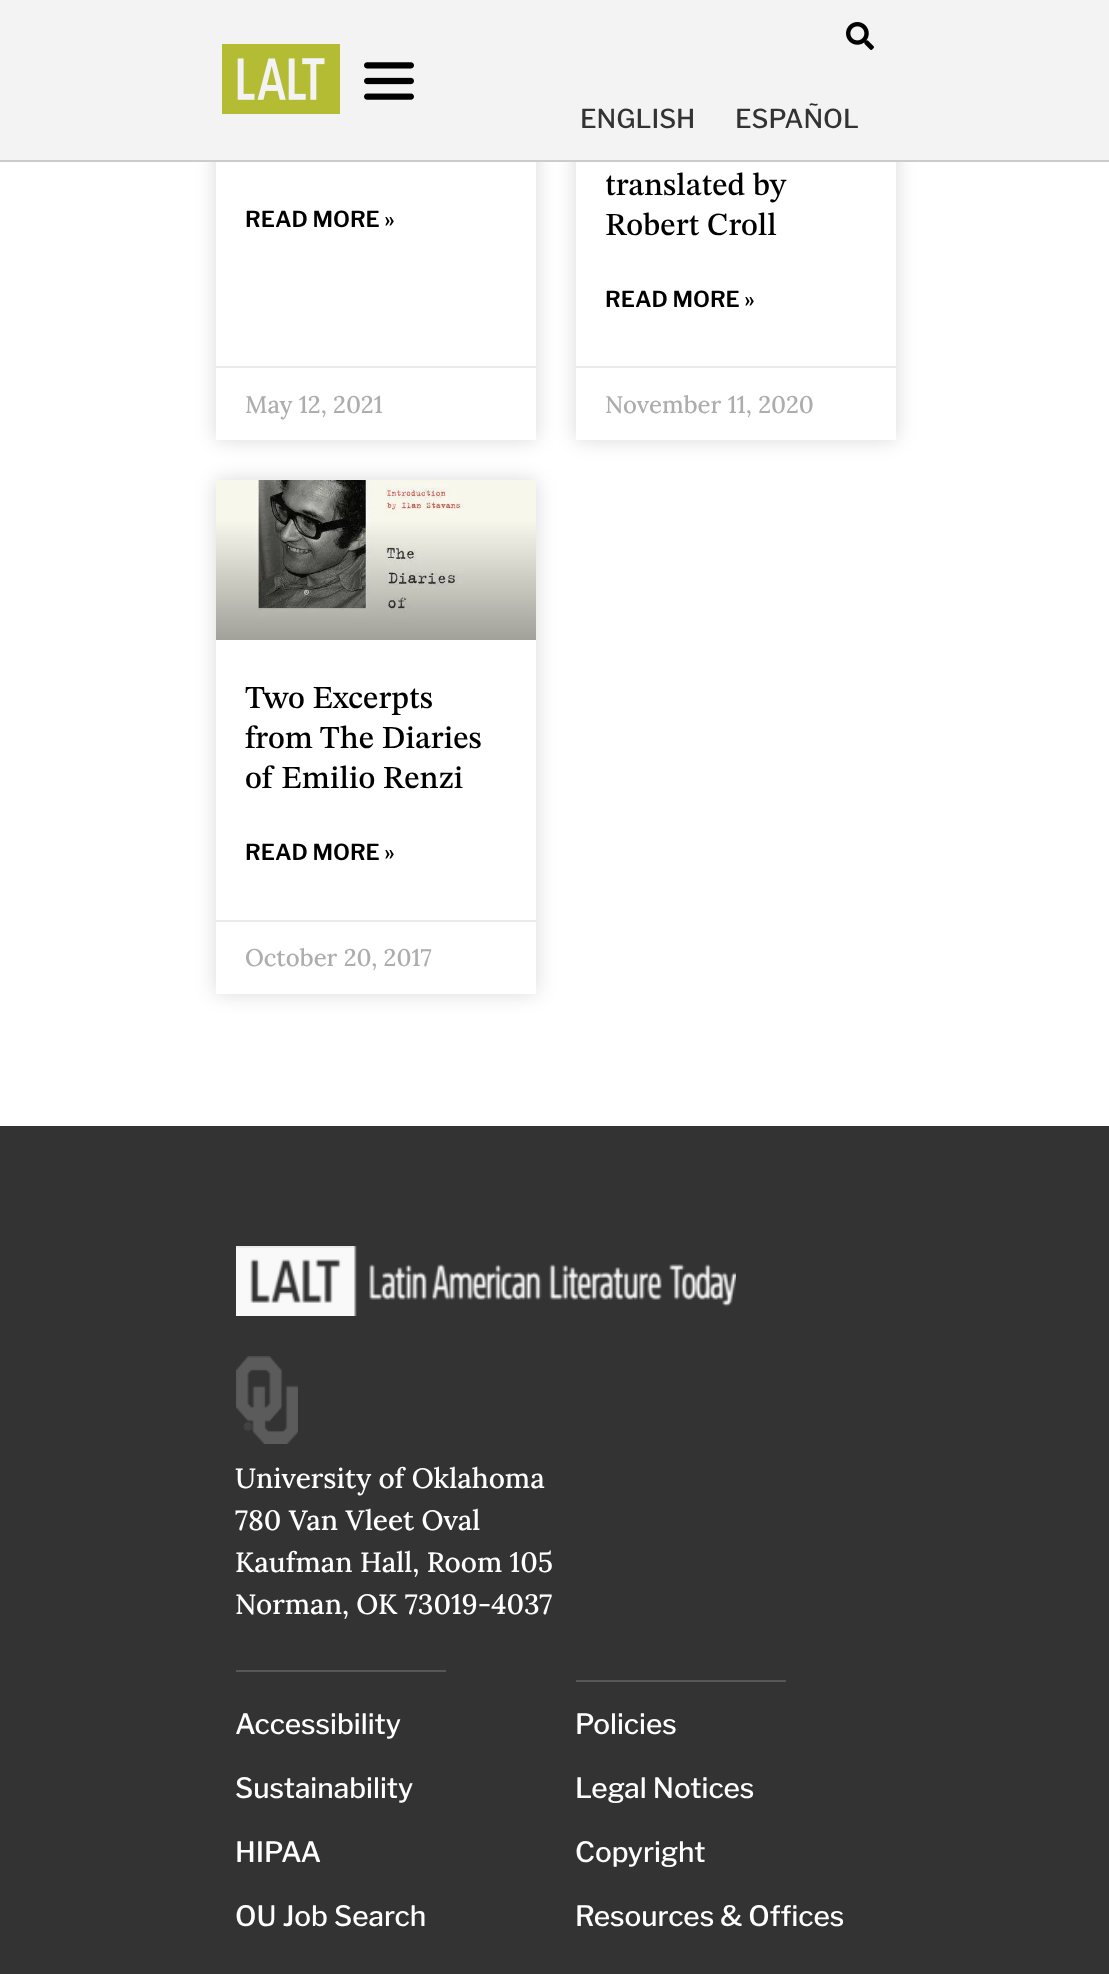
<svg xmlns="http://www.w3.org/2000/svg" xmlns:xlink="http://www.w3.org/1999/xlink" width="1109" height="1974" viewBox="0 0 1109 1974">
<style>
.cls-1{font:500 26px Libre Franklin;fill:#333333}
.cls-2{font:600 22px Libre Franklin;fill:#000000}
.cls-3{font:500 24px Lora;fill:#adadad}
.cls-4{font:500 32px STIX Two Text;fill:#000000}
.cls-5{font:500 28px Lora;fill:#ffffff}
.cls-6{font:500 28px Libre Franklin;fill:#ffffff}
</style>
<defs>
<clipPath id="clip1"><path d="M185 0H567V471H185ZM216-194H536V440H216Z" clip-rule="evenodd"/></clipPath>
<clipPath id="clip2"><path d="M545 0H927V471H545ZM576-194H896V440H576Z" clip-rule="evenodd"/></clipPath>
<clipPath id="clip3"><path d="M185 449H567V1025H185ZM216 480H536V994H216Z" clip-rule="evenodd"/></clipPath>
</defs>
<rect width="100%" height="100%" fill="#ffffff"/>
<g clip-path="url(#clip1)">
<rect fill="#000000" fill-opacity="0.15" filter="blur(10px)" x="216" y="-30" width="320" height="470"/>
</g>
<g clip-path="url(#clip2)">
<rect fill="#000000" fill-opacity="0.15" filter="blur(10px)" x="576" y="-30" width="320" height="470"/>
</g>
<rect fill="#f3f3f3" x="0" y="0" width="1109" height="160"/>
<rect fill="#cecacf" x="0" y="160" width="1109" height="2"/>
<image xlink:href="image0.png" x="222" y="44" width="118" height="70"/>
<image xlink:href="image1.png" x="364" y="62" width="50" height="38"/>
<image xlink:href="image2.png" x="846" y="22" width="28" height="28"/>
<rect fill="#eaeaea" x="216" y="366" width="320" height="2"/>
<rect fill="#eaeaea" x="576" y="366" width="320" height="2"/>
<g clip-path="url(#clip3)">
<rect fill="#000000" fill-opacity="0.15" filter="blur(10px)" x="216" y="480" width="320" height="514"/>
</g>
<image xlink:href="image3.png" x="216" y="480" width="320" height="160"/>
<rect fill="#eaeaea" x="216" y="920" width="320" height="2"/>
<rect fill="#333333" x="0" y="1126" width="1109" height="848"/>
<image xlink:href="image4.png" x="236" y="1246" width="500" height="70"/>
<image xlink:href="image5.png" x="236" y="1356" width="62" height="88"/>
<rect fill="#575757" x="236" y="1670" width="210" height="2"/>
<rect fill="#575757" x="576" y="1680" width="210" height="2"/>
<text class="cls-1" x="580" y="128">ENGLISH</text>
<text class="cls-1" x="735" y="128">ESPAÑOL</text>
<text class="cls-2" x="245" y="227">READ MORE »</text>
<text class="cls-3" x="245" y="413">May 12, 2021</text>
<text class="cls-4"><tspan x="605" y="195">translated by</tspan><tspan x="605" y="235">Robert Croll</tspan></text>
<text class="cls-2" x="605" y="307">READ MORE »</text>
<text class="cls-3" x="605" y="413">November 11, 2020</text>
<text class="cls-4"><tspan x="245" y="708">Two Excerpts</tspan><tspan x="245" y="748">from The Diaries</tspan><tspan x="245" y="788">of Emilio Renzi</tspan></text>
<text class="cls-2" x="245" y="860">READ MORE »</text>
<text class="cls-3" x="245" y="966">October 20, 2017</text>
<text class="cls-5"><tspan x="235" y="1488">University of Oklahoma</tspan><tspan x="235" y="1530">780 Van Vleet Oval</tspan><tspan x="235" y="1572">Kaufman Hall, Room 105</tspan><tspan x="235" y="1614">Norman, OK 73019-4037</tspan></text>
<text class="cls-6" x="235" y="1734">Accessibility</text>
<text class="cls-6" x="235" y="1798">Sustainability</text>
<text class="cls-6" x="235" y="1862">HIPAA</text>
<text class="cls-6" x="235" y="1926">OU Job Search</text>
<text class="cls-6" x="575" y="1734">Policies</text>
<text class="cls-6" x="575" y="1798">Legal Notices</text>
<text class="cls-6" x="575" y="1862">Copyright</text>
<text class="cls-6" x="575" y="1926">Resources &amp; Offices</text>
</svg>
